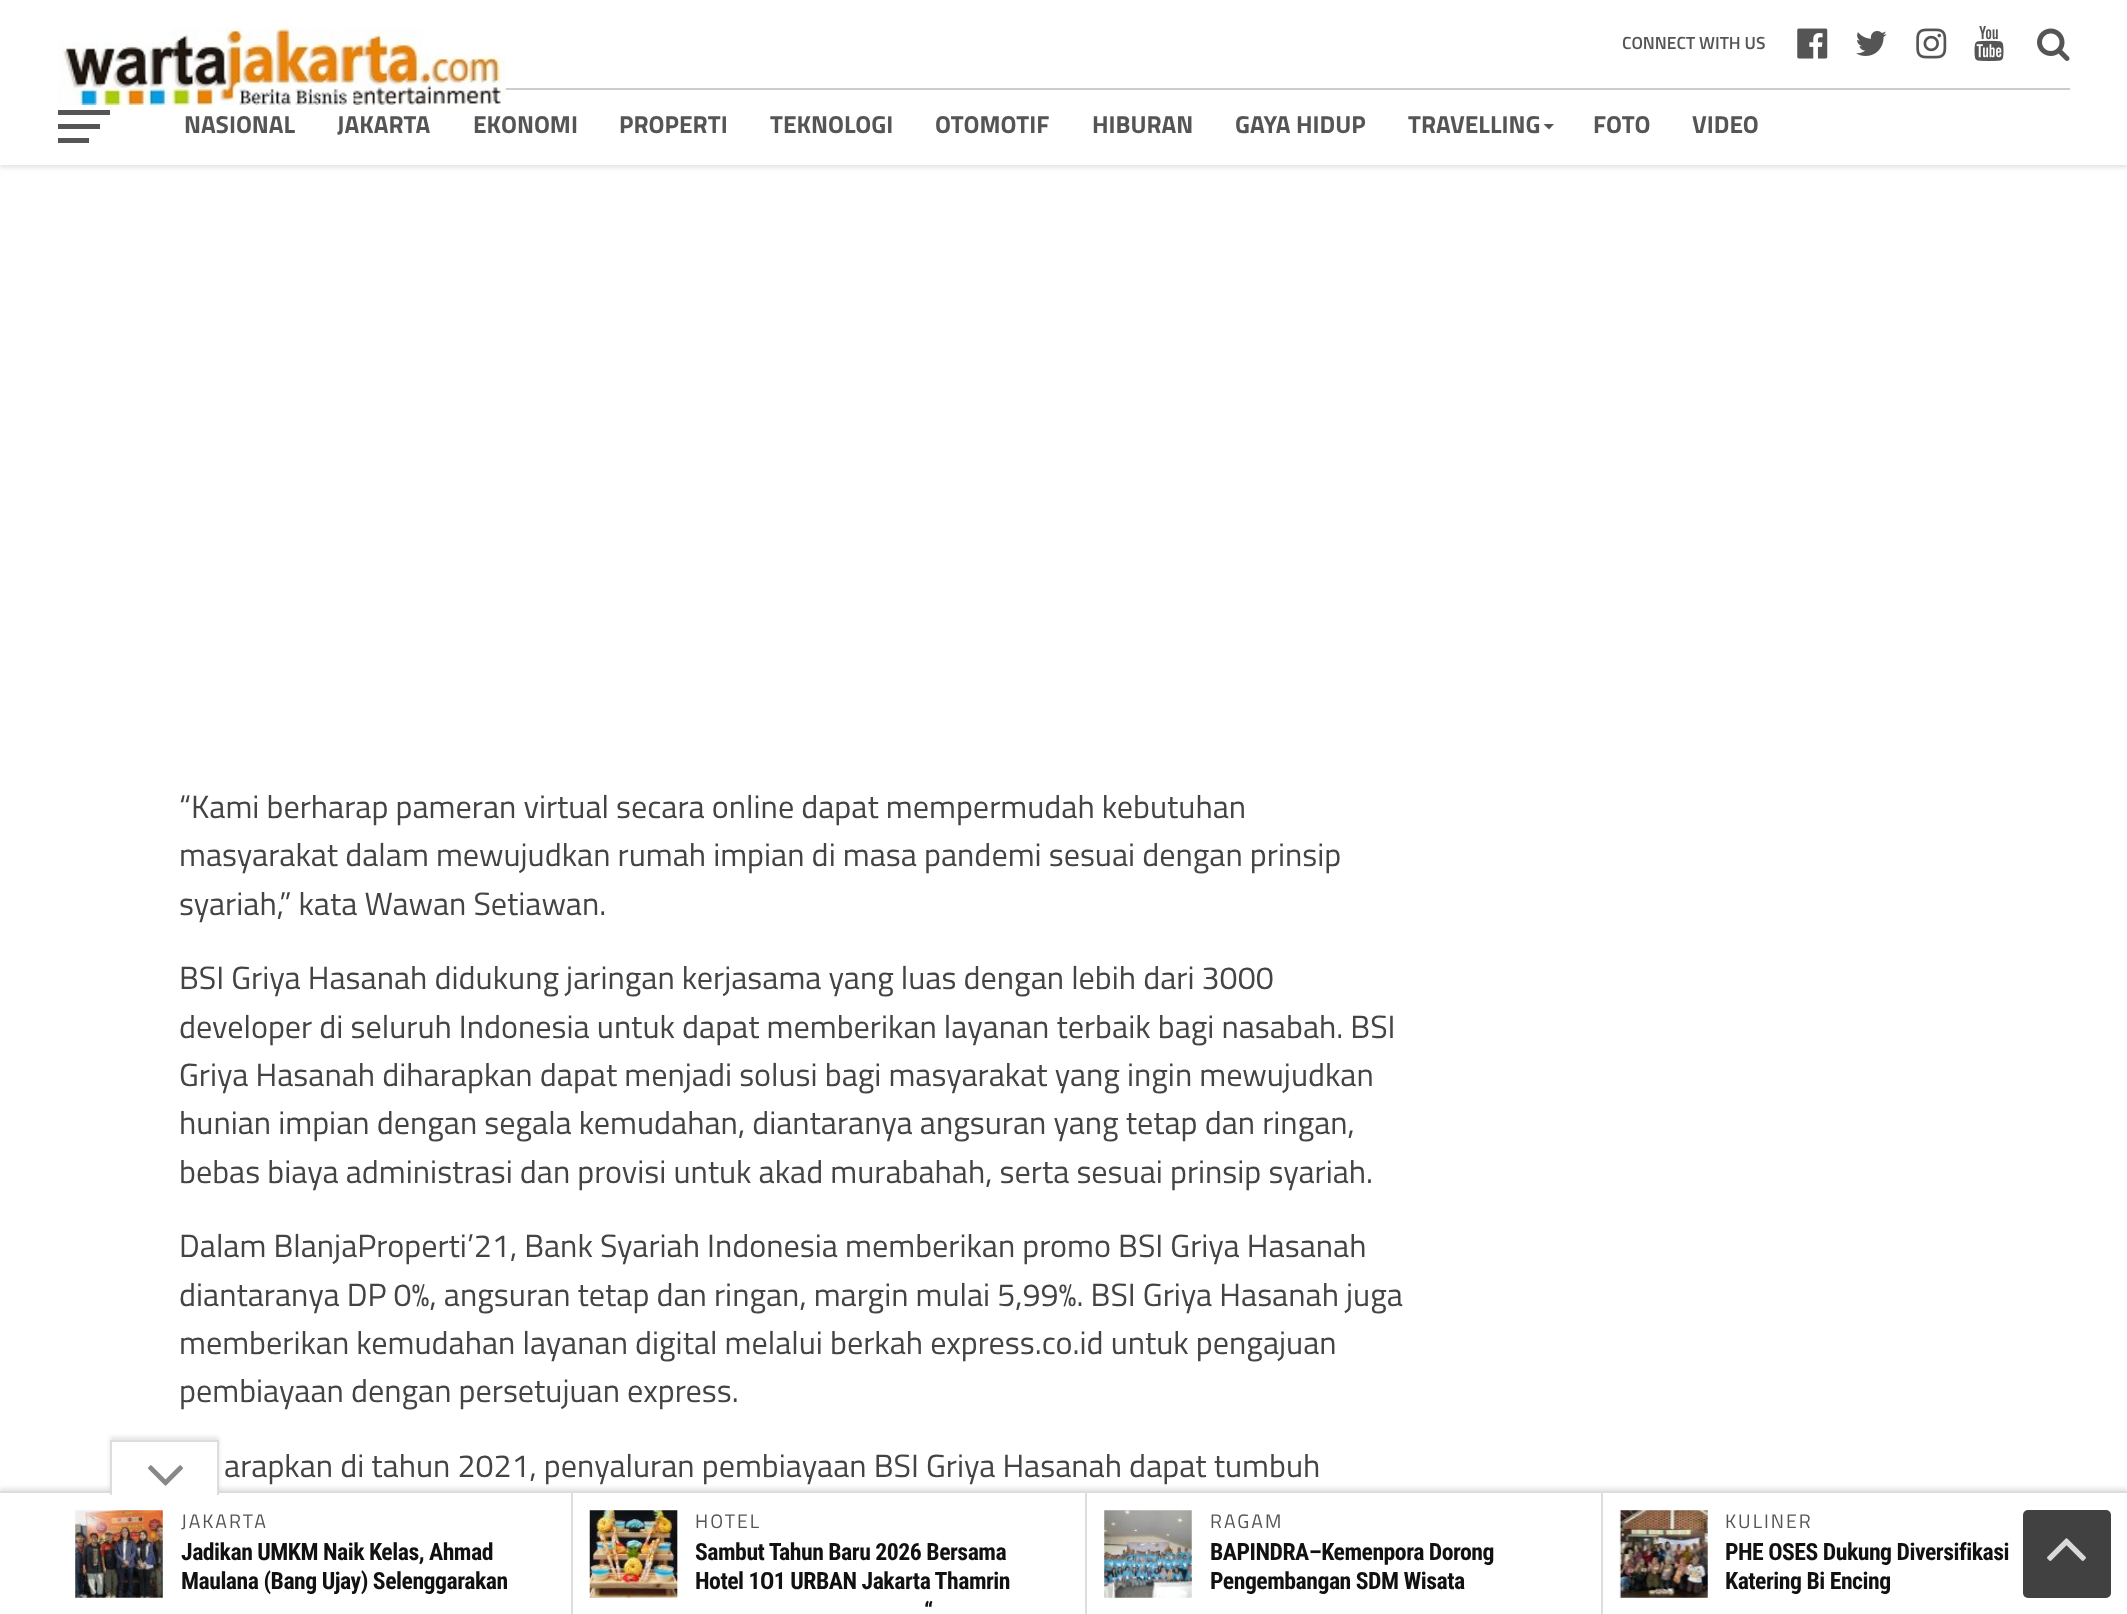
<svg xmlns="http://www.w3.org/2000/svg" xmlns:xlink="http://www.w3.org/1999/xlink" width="2127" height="1614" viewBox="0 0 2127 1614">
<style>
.cls-1{font:600 17.5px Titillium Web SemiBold;fill:#555555}
.cls-2{font:bold 24.5px Titillium Web;fill:#555555}
.cls-3{font:32.2px Titillium Web;fill:#444444}
.cls-4{font:19.5px Titillium Web;letter-spacing:2px;fill:#555555}
.cls-5{font:bold 23.75px Roboto Condensed;letter-spacing:-0.5px;fill:#111111}
</style>
<rect width="100%" height="100%" fill="#ffffff"/>
<rect fill="#000000" fill-opacity="0.1" filter="blur(2px)" x="0" y="4" width="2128" height="164"/>
<rect fill="#ffffff" x="0" y="1" width="2127" height="164"/>
<rect fill="#cccccc" x="505" y="88" width="1565" height="2"/>
<image xlink:href="image0.png" x="58" y="26" width="449" height="79"/>
<image xlink:href="image1.png" x="1797" y="28" width="31" height="31"/>
<image xlink:href="image2.png" x="1856" y="31" width="31" height="25"/>
<image xlink:href="image3.png" x="1916" y="28" width="31" height="31"/>
<image xlink:href="image4.png" x="1974" y="26" width="30" height="35"/>
<image xlink:href="image5.png" x="2037" y="28" width="33" height="33"/>
<rect fill="#555555" x="58" y="110" width="52" height="5"/>
<rect fill="#555555" x="58" y="124" width="42" height="5"/>
<rect fill="#555555" x="58" y="138" width="31" height="5"/>
<path fill="#555555" d="M1543.5 124H1554L1549 129.5Z"/>
<rect fill="#000000" fill-opacity="0.1" filter="blur(2px)" x="0" y="1488" width="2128" height="124"/>
<rect fill="#ffffff" x="0" y="1493" width="2127" height="121"/>
<rect fill="#dddddd" x="0" y="1491" width="2127" height="2"/>
<rect fill="#000000" fill-opacity="0.1" filter="blur(2px)" x="110" y="1437" width="109" height="54"/>
<rect fill="#ffffff" x="112" y="1442" width="105" height="52"/>
<rect fill="#dddddd" x="110" y="1440" width="109" height="2"/>
<rect fill="#dddddd" x="217" y="1440" width="2" height="55"/>
<rect fill="#dddddd" x="110" y="1440" width="2" height="55"/>
<image xlink:href="image6.png" x="148" y="1465" width="35" height="21"/>
<image xlink:href="image7.png" x="75" y="1510" width="88" height="88"/>
<rect fill="#dddddd" x="571" y="1493" width="2" height="121"/>
<image xlink:href="image8.png" x="589" y="1510" width="89" height="88"/>
<rect fill="#dddddd" x="1085" y="1493" width="2" height="121"/>
<image xlink:href="image9.png" x="1104" y="1510" width="88" height="88"/>
<rect fill="#dddddd" x="1601" y="1493" width="2" height="121"/>
<image xlink:href="image10.png" x="1619" y="1510" width="89" height="88"/>
<rect fill="#414141" x="2023" y="1510" width="88" height="88" rx="5"/>
<image xlink:href="image11.png" x="2047" y="1538" width="39" height="23"/>
<text class="cls-1" x="1622" y="49">CONNECT WITH US</text>
<text class="cls-2" x="184" y="133">NASIONAL</text>
<text class="cls-2" x="337" y="133">JAKARTA</text>
<text class="cls-2" x="473" y="133">EKONOMI</text>
<text class="cls-2" x="619" y="133">PROPERTI</text>
<text class="cls-2" x="770" y="133">TEKNOLOGI</text>
<text class="cls-2" x="935" y="133">OTOMOTIF</text>
<text class="cls-2" x="1092" y="133">HIBURAN</text>
<text class="cls-2" x="1235" y="133">GAYA HIDUP</text>
<text class="cls-2" x="1408" y="133">TRAVELLING</text>
<text class="cls-2" x="1593" y="133">FOTO</text>
<text class="cls-2" x="1692" y="133">VIDEO</text>
<text class="cls-3"><tspan x="179" y="818">“Kami berharap pameran virtual secara online dapat mempermudah kebutuhan</tspan><tspan x="179" y="866">masyarakat dalam mewujudkan rumah impian di masa pandemi sesuai dengan prinsip</tspan><tspan x="179" y="915">syariah,” kata Wawan Setiawan.</tspan></text>
<text class="cls-3"><tspan x="179" y="989">BSI Griya Hasanah didukung jaringan kerjasama yang luas dengan lebih dari 3000</tspan><tspan x="179" y="1038">developer di seluruh Indonesia untuk dapat memberikan layanan terbaik bagi nasabah. BSI</tspan><tspan x="179" y="1086">Griya Hasanah diharapkan dapat menjadi solusi bagi masyarakat yang ingin mewujudkan</tspan><tspan x="179" y="1134">hunian impian dengan segala kemudahan, diantaranya angsuran yang tetap dan ringan,</tspan><tspan x="179" y="1183">bebas biaya administrasi dan provisi untuk akad murabahah, serta sesuai prinsip syariah.</tspan></text>
<text class="cls-3"><tspan x="179" y="1257">Dalam BlanjaProperti’21, Bank Syariah Indonesia memberikan promo BSI Griya Hasanah</tspan><tspan x="179" y="1306">diantaranya DP 0%, angsuran tetap dan ringan, margin mulai 5,99%. BSI Griya Hasanah juga</tspan><tspan x="179" y="1354">memberikan kemudahan layanan digital melalui berkah express.co.id untuk pengajuan</tspan><tspan x="179" y="1402">pembiayaan dengan persetujuan express.</tspan></text>
<text class="cls-3" x="224" y="1477">arapkan di tahun 2021, penyaluran pembiayaan BSI Griya Hasanah dapat tumbuh</text>
<text class="cls-4" x="181" y="1528">JAKARTA</text>
<text class="cls-5"><tspan x="181" y="1560">Jadikan UMKM Naik Kelas, Ahmad</tspan><tspan x="181" y="1589">Maulana (Bang Ujay) Selenggarakan</tspan></text>
<text class="cls-4" x="695" y="1528">HOTEL</text>
<text class="cls-5"><tspan x="695" y="1560">Sambut Tahun Baru 2026 Bersama</tspan><tspan x="695" y="1589">Hotel 1O1 URBAN Jakarta Thamrin</tspan></text>
<text class="cls-5" x="924" y="1619">“</text>
<text class="cls-4" x="1210" y="1528">RAGAM</text>
<text class="cls-5"><tspan x="1210" y="1560">BAPINDRA–Kemenpora Dorong</tspan><tspan x="1210" y="1589">Pengembangan SDM Wisata</tspan></text>
<text class="cls-4" x="1725" y="1528">KULINER</text>
<text class="cls-5"><tspan x="1725" y="1560">PHE OSES Dukung Diversifikasi</tspan><tspan x="1725" y="1589">Katering Bi Encing</tspan></text>
</svg>
